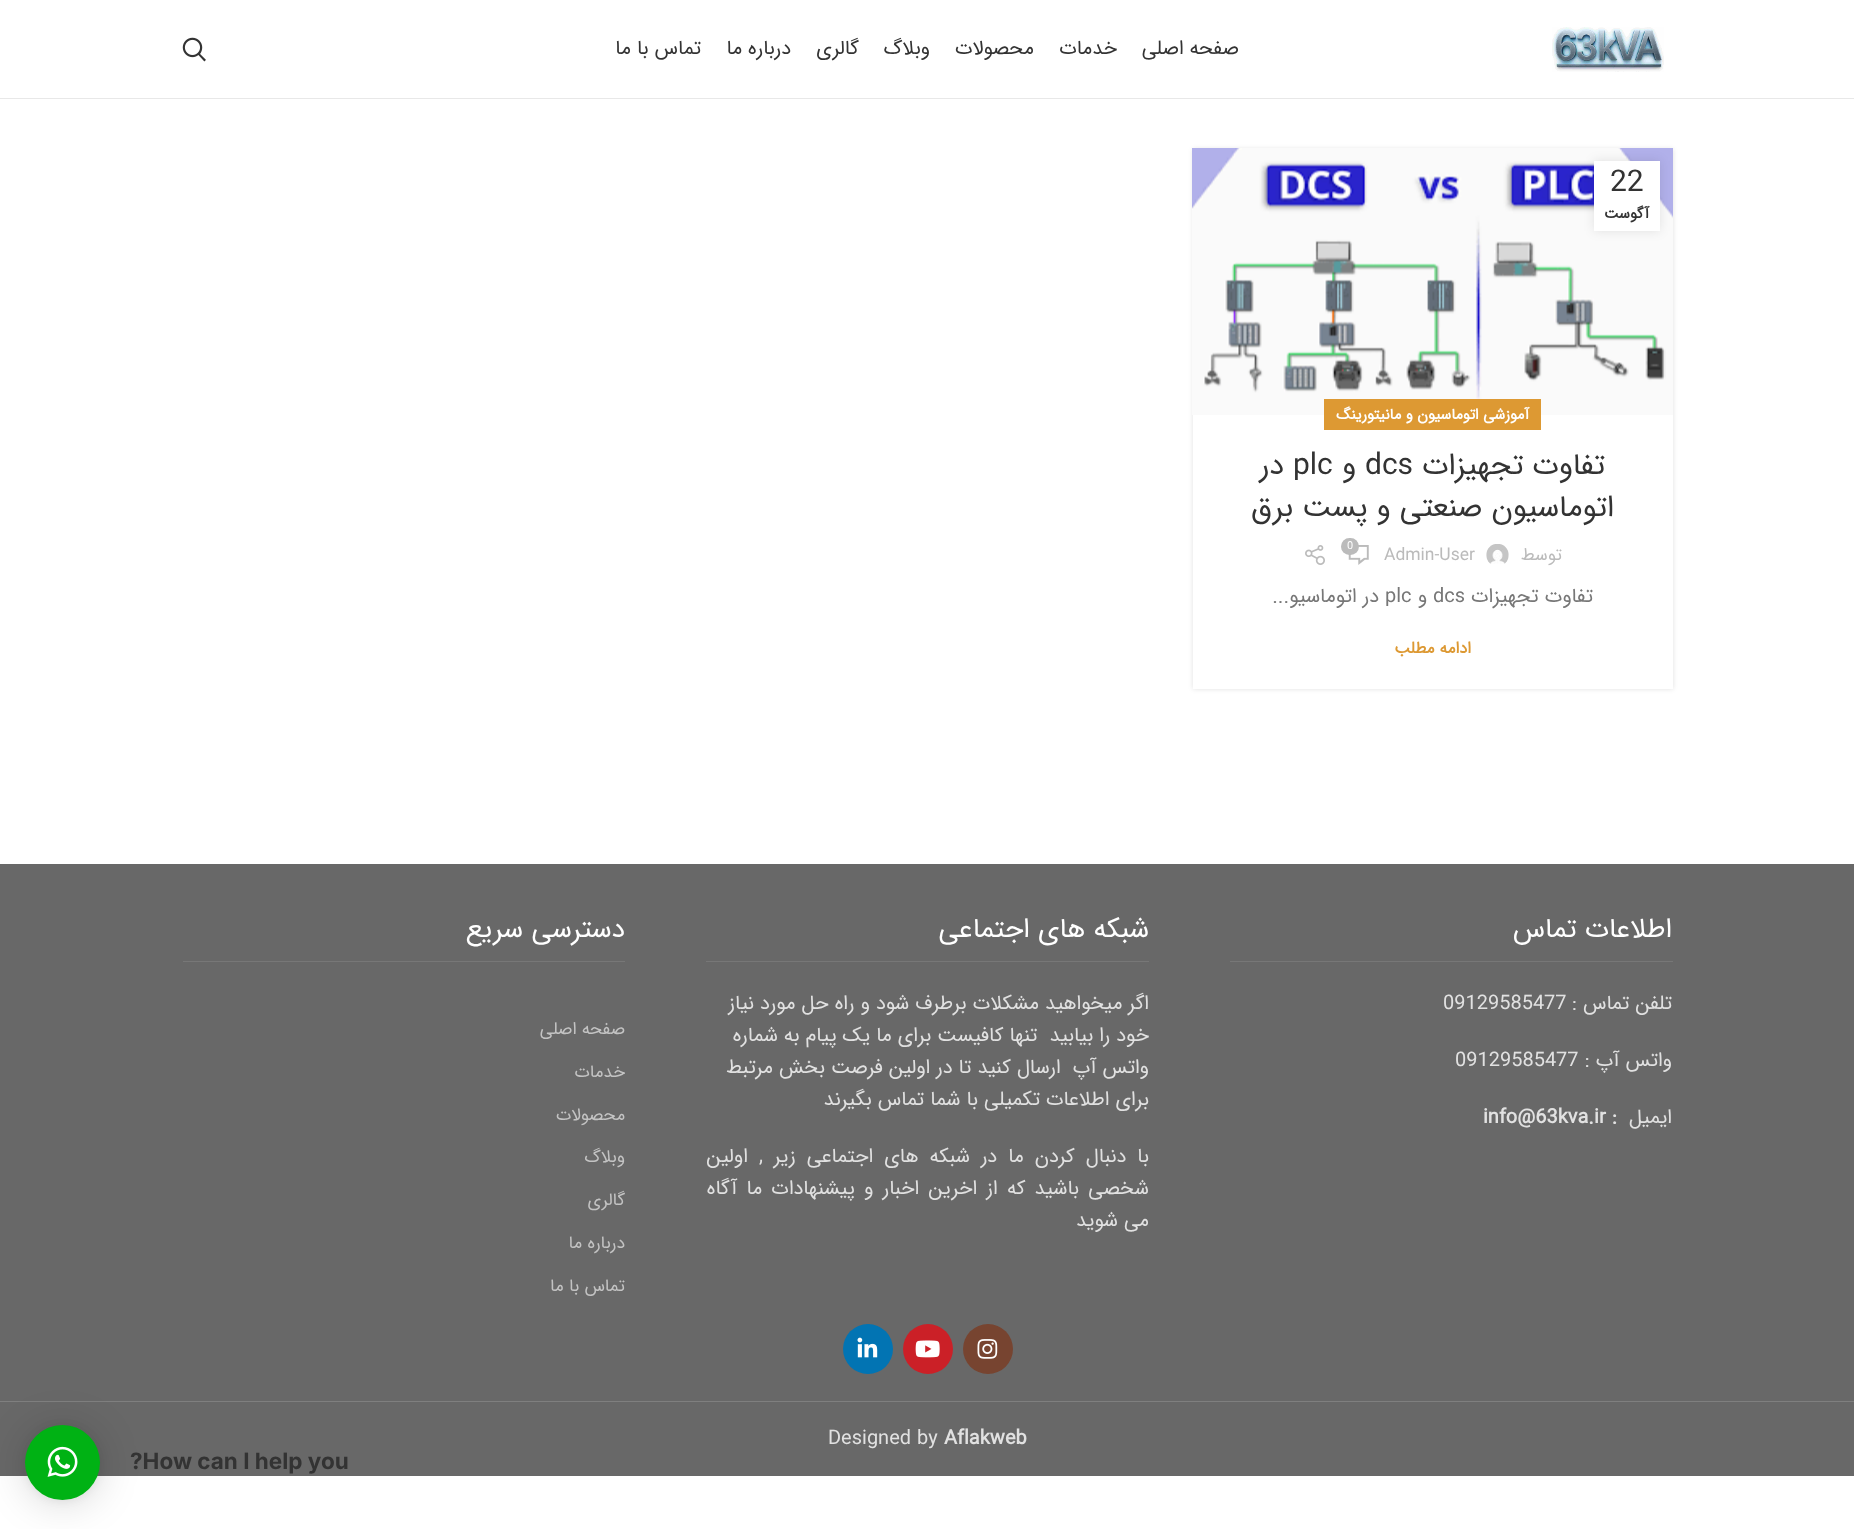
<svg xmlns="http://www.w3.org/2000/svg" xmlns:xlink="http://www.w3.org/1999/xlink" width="1854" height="1529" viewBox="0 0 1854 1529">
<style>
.cls-1{font:20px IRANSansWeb;direction:rtl;fill:#333333}
.cls-2{font:30px IRANSansWeb;fill:#333333}
.cls-3{font:bold 15px IRANSansWeb;direction:rtl;fill:#333333}
.cls-4{font:bold 15px IRANSansWeb;direction:rtl;fill:#ffffff}
.cls-5{font:30px IRANSansWeb;direction:rtl;fill:#333333}
.cls-6{font:11px IRANSansWeb;fill:#ffffff}
.cls-7{font:17.5px IRANSansWeb;direction:rtl;fill:#bbbbbb}
.cls-8{font:17.5px IRANSansWeb;fill:#bbbbbb}
.cls-9{font:20px IRANSansWeb;direction:rtl;fill:#777777}
.cls-10{font:20px IRANSansWeb;fill:#777777}
.cls-11{font:bold 16.25px IRANSansWeb;direction:rtl;fill:#dd9933}
.cls-12{font:27.5px IRANSansWeb;direction:rtl;fill:#ffffff}
.cls-13{font:20px IRANSansWeb;direction:rtl;fill:#e1e1e1}
.cls-14{font:20px IRANSansWeb;fill:#e1e1e1}
.cls-15{font:bold 20px IRANSansWeb;fill:#e1e1e1}
.cls-16{font:17.5px IRANSansWeb;direction:rtl;fill:#c3c3c3}
.cls-17{font:bold 22.5px Inter;fill:#333333}
</style>
<rect width="100%" height="100%" fill="#ffffff"/>
<rect fill="#e8e8e8" x="0" y="98" width="1854" height="1"/>
<image xlink:href="image0.png" x="1552" y="27" width="112" height="45"/>
<image xlink:href="image1.png" x="182" y="37" width="24" height="25"/>
<rect fill="#000000" fill-opacity="0.12" filter="blur(2.5px)" x="1193" y="149" width="480" height="540"/>
<image xlink:href="image2.png" x="1192" y="148" width="481" height="267"/>
<rect fill="#000000" fill-opacity="0.1" filter="blur(5.5px)" x="1594" y="161" width="66" height="70"/>
<rect fill="#ffffff" x="1594" y="161" width="66" height="70"/>
<rect fill="#ffffff" x="1193" y="415" width="480" height="274"/>
<rect fill="#dd9933" x="1324" y="399" width="217" height="31"/>
<image xlink:href="image3.png" x="1348" y="545" width="21" height="20"/>
<rect fill="#bbbbbb" x="1341" y="538" width="18" height="17" rx="8.5"/>
<image xlink:href="image4.png" x="1486" y="544" width="23" height="20"/>
<image xlink:href="image5.png" x="1305" y="545" width="20" height="20"/>
<rect fill="#686868" x="0" y="864" width="1854" height="612"/>
<rect fill="#777777" x="1230" y="961" width="443" height="1"/>
<rect fill="#777777" x="706" y="961" width="443" height="1"/>
<circle fill="#774430" cx="988" cy="1349" r="25"/>
<image xlink:href="image6.png" x="977" y="1339" width="21" height="20"/>
<circle fill="#cb2027" cx="928" cy="1349" r="25"/>
<image xlink:href="image7.png" x="915" y="1340" width="25" height="18"/>
<circle fill="#0274b3" cx="868" cy="1349" r="25"/>
<image xlink:href="image8.png" x="857" y="1337" width="21" height="21"/>
<rect fill="#777777" x="183" y="961" width="442" height="1"/>
<rect fill="#7f7f7f" x="0" y="1401" width="1854" height="1"/>
<rect fill="#000000" fill-opacity="0.16" filter="blur(20px)" x="25" y="1428" width="75" height="75" rx="37.5"/>
<rect fill="#000000" fill-opacity="0.06" filter="blur(4px)" x="25" y="1426" width="75" height="75" rx="37.5"/>
<circle fill="#00b214" cx="62.5" cy="1462.5" r="37.5"/>
<image xlink:href="image9.png" x="47" y="1446" width="31" height="31"/>
<text class="cls-1" x="1239" y="54">صفحه اصلی</text>
<text class="cls-1" x="1117" y="54">خدمات</text>
<text class="cls-1" x="1034" y="54">محصولات</text>
<text class="cls-1" x="930" y="54">وبلاگ</text>
<text class="cls-1" x="859" y="54">گالری</text>
<text class="cls-1" x="791" y="54">درباره ما</text>
<text class="cls-1" x="701" y="54">تماس با ما</text>
<text class="cls-2" x="1610" y="191">22</text>
<text class="cls-3" x="1649" y="218">آگوست</text>
<text class="cls-4" x="1529" y="419">آموزشی اتوماسیون و مانیتورینگ</text>
<text class="cls-5" x="1605" y="474">تفاوت تجهیزات</text>
<text class="cls-2" x="1365" y="474">dcs</text>
<text class="cls-5" x="1356" y="474">و</text>
<text class="cls-2" x="1293" y="474">plc</text>
<text class="cls-5" x="1284" y="474">در</text>
<text class="cls-5" x="1614" y="516">اتوماسیون صنعتی و پست برق</text>
<text class="cls-6" x="1347" y="549">0</text>
<text class="cls-7" x="1562" y="560">توسط</text>
<text class="cls-8" x="1384" y="560">Admin-User</text>
<text class="cls-9" x="1593" y="602">تفاوت تجهیزات</text>
<text class="cls-10" x="1433" y="602">dcs</text>
<text class="cls-9" x="1427" y="602">و</text>
<text class="cls-10" x="1385" y="602">plc</text>
<text class="cls-9" x="1379" y="602">در اتوماسیو...</text>
<text class="cls-11" x="1471" y="653">ادامه مطلب</text>
<text class="cls-12" x="1672" y="937">اطلاعات تماس</text>
<text class="cls-13" x="1672" y="1009">تلفن تماس :</text>
<text class="cls-14" x="1443" y="1009">09129585477</text>
<text class="cls-13" x="1672" y="1066">واتس آپ :</text>
<text class="cls-14" x="1455" y="1066">09129585477</text>
<text class="cls-13" x="1672" y="1123">ایمیل</text>
<text class="cls-15" x="1483" y="1123">info@63kva.ir :</text>
<text class="cls-12" x="1149" y="937">شبکه های اجتماعی</text>
<text class="cls-13" xml:space="preserve"><tspan x="1149" y="1009">اگر میخواهید مشکلات برطرف شود و راه حل مورد نیاز</tspan><tspan x="1149" y="1041">خود را بیابید  تنها کافیست برای ما یک پیام به شماره</tspan><tspan x="1149" y="1073">واتس آپ  ارسال کنید تا در اولین فرصت بخش مرتبط</tspan><tspan x="1149" y="1105">برای اطلاعات تکمیلی با شما تماس بگیرند</tspan></text>
<text class="cls-13"><tspan x="1149" y="1162" word-spacing="5">با دنبال کردن ما در شبکه های اجتماعی زیر , اولین</tspan><tspan x="1149" y="1194" word-spacing="3.25">شخصی باشید که از اخرین اخبار و پیشنهادات ما آگاه</tspan><tspan x="1149" y="1226">می شوید</tspan></text>
<text class="cls-12" x="625" y="937">دسترسی سریع</text>
<text class="cls-16" x="625" y="1034">صفحه اصلی</text>
<text class="cls-16" x="625" y="1077">خدمات</text>
<text class="cls-16" x="625" y="1120">محصولات</text>
<text class="cls-16" x="625" y="1162">وبلاگ</text>
<text class="cls-16" x="625" y="1205">گالری</text>
<text class="cls-16" x="625" y="1248">درباره ما</text>
<text class="cls-16" x="625" y="1291">تماس با ما</text>
<text class="cls-15" x="944" y="1444">Aflakweb</text>
<text class="cls-14" x="828" y="1444">Designed by</text>
<text class="cls-17" x="130" y="1469">?How can I help you</text>
</svg>
